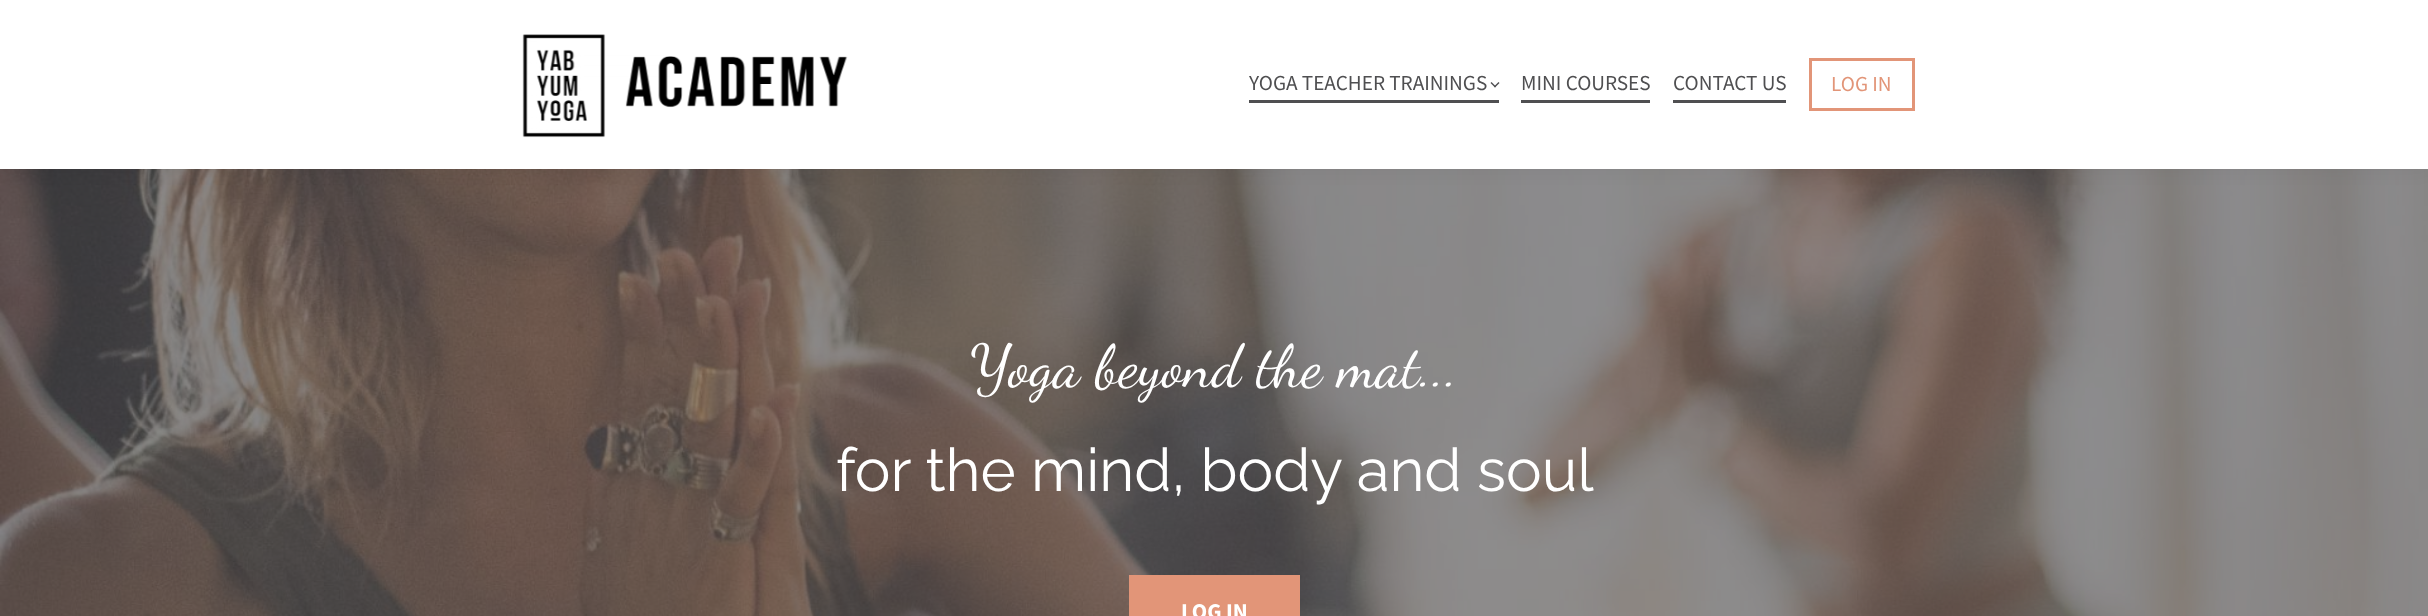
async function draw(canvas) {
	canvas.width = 2428;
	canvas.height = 616;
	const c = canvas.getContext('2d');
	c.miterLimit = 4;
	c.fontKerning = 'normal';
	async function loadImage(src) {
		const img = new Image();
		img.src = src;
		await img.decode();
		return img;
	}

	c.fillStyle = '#fff';
	c.fillRect(0, 0, 2428, 616);
	c.drawImage(await loadImage('img2.png'), 0, 169, 2428, 447);
	c.fillStyle = '#0000000d';
	c.filter = 'blur(9.5px)';
	c.beginPath();
	c.rect(0, 0, 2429, 169);
	c.fill();
	c.filter = 'none';
	c.fillStyle = '#fff';
	c.fillRect(0, 0, 2428, 169);
	c.drawImage(await loadImage('img1.png'), 522, 34, 326, 104);
	c.fillStyle = '#4f4f51';
	c.fillRect(1249, 100, 250, 3);
	c.font = '21.25px Source Sans Pro';
	c.fillText('YOGA TEACHER TRAININGS', 1249, 90);
	c.beginPath();
	c.moveTo(1499.5, 83);
	c.lineTo(1495, 87.5);
	c.lineTo(1494, 86.5);
	c.lineTo(1498.5, 82);
	c.closePath();
	c.fill();
	c.beginPath();
	c.moveTo(1496, 86.5);
	c.lineTo(1495, 87.5);
	c.lineTo(1490.5, 83);
	c.lineTo(1491.5, 82);
	c.closePath();
	c.fill();
	c.fillRect(1521, 100, 129, 3);
	c.fillText('MINI COURSES', 1521, 90);
	c.fillRect(1673, 100, 113, 3);
	c.fillText('CONTACT US', 1673, 90);
	c.strokeStyle = '#e29578';
	c.lineWidth = 3;
	c.strokeRect(1810.5, 59.5, 103, 50);
	c.fillStyle = '#e29578';
	c.fillText('LOG IN', 1831, 91);
	c.font = '60px Dancing Script';
	c.fillStyle = '#fff';
	c.fillText('Yoga beyond the mat...', 970, 386);
	c.font = '60px Raleway';
	c.fillText('for the mind, body and soul', 836, 491);
	c.fillStyle = '#e29578';
	c.fillRect(1129, 575, 171, 41);
	c.font = 'bold 22.5px Source Sans Pro';
	c.fillStyle = '#fff';
	c.fillText('LOG IN', 1181, 619);
}

draw(document.querySelector('canvas'));
